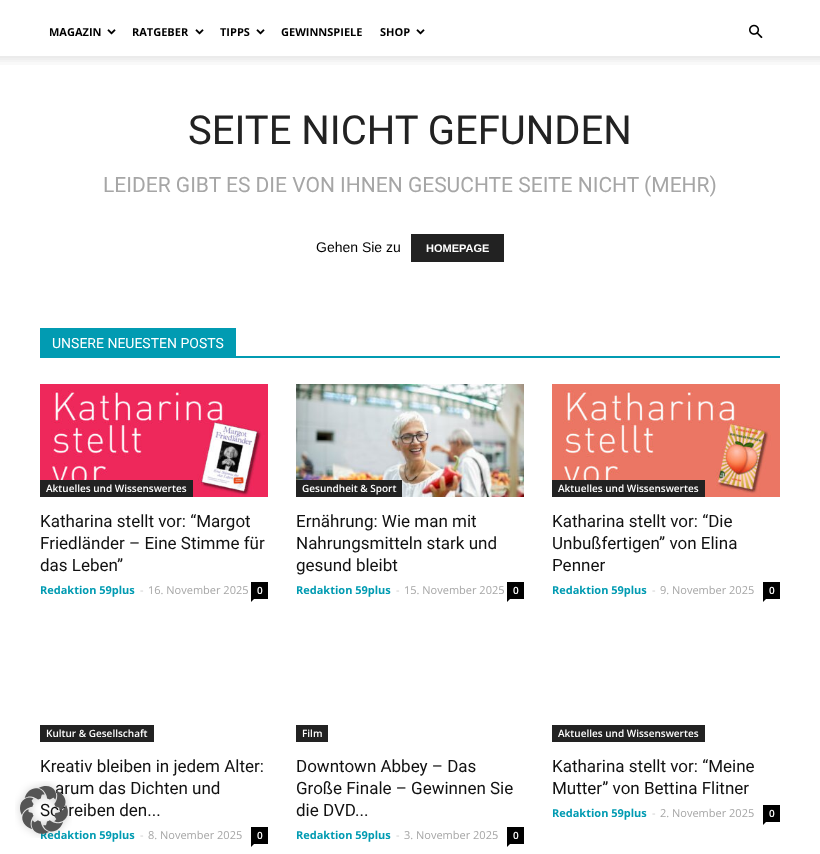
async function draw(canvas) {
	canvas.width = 820;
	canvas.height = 854;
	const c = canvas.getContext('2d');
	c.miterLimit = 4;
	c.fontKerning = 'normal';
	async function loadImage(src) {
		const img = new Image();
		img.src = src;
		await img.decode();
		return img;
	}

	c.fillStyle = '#fff';
	c.fillRect(0, 0, 820, 854);
	c.font = 'bold 11px Open Sans';
	c.fillStyle = '#000';
	c.fillText('MAGAZIN', 49, 36);
	c.drawImage(await loadImage('img1.png'), 107, 29, 9, 6);
	c.fillText('RATGEBER', 132, 36);
	c.drawImage(await loadImage('img1.png'), 195, 29, 9, 6);
	c.fillText('TIPPS', 220, 36);
	c.drawImage(await loadImage('img1.png'), 256, 29, 9, 6);
	c.fillText('GEWINNSPIELE', 281, 36);
	c.fillText('SHOP', 380, 36);
	c.drawImage(await loadImage('img1.png'), 416, 29, 9, 6);
	c.drawImage(await loadImage('img2.png'), 749, 24, 14, 15);
	c.drawImage(await loadImage('img3.png'), 0, 56, 820, 9);
	c.font = '40px Roboto';
	c.fillStyle = '#222';
	c.fillText('SEITE NICHT GEFUNDEN', 188, 144);
	c.font = '21px Roboto';
	c.fillStyle = '#a6a6a6';
	c.fillText('LEIDER GIBT ES DIE VON IHNEN GESUCHTE SEITE NICHT (MEHR)', 103, 192);
	c.font = '14px Liberation Sans';
	c.fillStyle = '#000';
	c.fillText('Gehen Sie zu', 316, 252);
	c.fillStyle = '#222';
	c.fillRect(411, 234, 93, 28);
	c.font = 'bold 11px Liberation Sans';
	c.fillStyle = '#fff';
	c.fillText('HOMEPAGE', 426, 252);
	c.fillStyle = '#019bb2';
	c.fillRect(40, 356, 740, 2);
	c.fillRect(40, 328, 196, 28);
	c.font = '14px Roboto';
	c.fillStyle = '#fff';
	c.fillText('UNSERE NEUESTEN POSTS', 52, 348);
	c.drawImage(await loadImage('img4.png'), 40, 384, 228, 113);
	c.fillStyle = '#222';
	c.fillRect(40, 480, 153, 17);
	c.font = '600 10px Open Sans';
	c.fillStyle = '#fff';
	c.fillText('Aktuelles und Wissenswertes', 46, 492);
	c.font = '17px Roboto';
	c.fillStyle = '#111';
	for (const [text, x, y] of [
		['Katharina stellt vor: “Margot', 40, 527],
		['Friedländer – Eine Stimme für', 40, 549],
		['das Leben”', 40, 571],
	]) {
		c.fillText(text, x, y);
	}
	c.font = 'bold 11px Open Sans';
	c.fillStyle = '#019bb2';
	c.fillText('Redaktion 59plus', 40, 594);
	c.font = '11px Open Sans';
	c.fillStyle = '#ccc';
	c.fillText('-', 140, 594);
	c.fillStyle = '#a6a6a6';
	c.fillText('16. November 2025', 148, 594);
	c.fillStyle = '#000';
	c.fillRect(251, 582, 17, 17);
	c.font = '600 10px Open Sans';
	c.fillStyle = '#fff';
	c.fillText('0', 257, 594);
	c.fillStyle = '#000';
	c.beginPath();
	c.moveTo(251, 599);
	c.lineTo(254, 599);
	c.lineTo(251, 602);
	c.closePath();
	c.fill();
	c.drawImage(await loadImage('img5.png'), 296, 384, 228, 113);
	c.fillStyle = '#222';
	c.fillRect(296, 480, 106, 17);
	c.fillStyle = '#fff';
	c.fillText('Gesundheit & Sport', 302, 492);
	c.font = '17px Roboto';
	c.fillStyle = '#111';
	for (const [text, x, y] of [
		['Ernährung: Wie man mit', 296, 527],
		['Nahrungsmitteln stark und', 296, 549],
		['gesund bleibt', 296, 571],
	]) {
		c.fillText(text, x, y);
	}
	c.font = 'bold 11px Open Sans';
	c.fillStyle = '#019bb2';
	c.fillText('Redaktion 59plus', 296, 594);
	c.font = '11px Open Sans';
	c.fillStyle = '#ccc';
	c.fillText('-', 396, 594);
	c.fillStyle = '#a6a6a6';
	c.fillText('15. November 2025', 404, 594);
	c.fillStyle = '#000';
	c.fillRect(507, 582, 17, 17);
	c.font = '600 10px Open Sans';
	c.fillStyle = '#fff';
	c.fillText('0', 513, 594);
	c.fillStyle = '#000';
	c.beginPath();
	c.moveTo(507, 599);
	c.lineTo(510, 599);
	c.lineTo(507, 602);
	c.closePath();
	c.fill();
	c.drawImage(await loadImage('img6.png'), 552, 384, 228, 113);
	c.fillStyle = '#222';
	c.fillRect(552, 480, 153, 17);
	c.fillStyle = '#fff';
	c.fillText('Aktuelles und Wissenswertes', 558, 492);
	c.font = '17px Roboto';
	c.fillStyle = '#111';
	for (const [text, x, y] of [
		['Katharina stellt vor: “Die', 552, 527],
		['Unbußfertigen” von Elina', 552, 549],
		['Penner', 552, 571],
	]) {
		c.fillText(text, x, y);
	}
	c.font = 'bold 11px Open Sans';
	c.fillStyle = '#019bb2';
	c.fillText('Redaktion 59plus', 552, 594);
	c.font = '11px Open Sans';
	c.fillStyle = '#ccc';
	c.fillText('-', 652, 594);
	c.fillStyle = '#a6a6a6';
	c.fillText('9. November 2025', 660, 594);
	c.fillStyle = '#000';
	c.fillRect(763, 582, 17, 17);
	c.font = '600 10px Open Sans';
	c.fillStyle = '#fff';
	c.fillText('0', 769, 594);
	c.fillStyle = '#000';
	c.beginPath();
	c.moveTo(763, 599);
	c.lineTo(766, 599);
	c.lineTo(763, 602);
	c.closePath();
	c.fill();
	c.fillStyle = '#222';
	c.fillRect(40, 725, 114, 17);
	c.fillStyle = '#fff';
	c.fillText('Kultur & Gesellschaft', 46, 737);
	c.font = '17px Roboto';
	c.fillStyle = '#111';
	for (const [text, x, y] of [
		['Kreativ bleiben in jedem Alter:', 40, 772],
		['arum das Dichten und', 55, 794],
		['Schreiben den...', 40, 816],
	]) {
		c.fillText(text, x, y);
	}
	c.font = 'bold 11px Open Sans';
	c.fillStyle = '#019bb2';
	c.fillText('Redaktion 59plus', 40, 839);
	c.font = '11px Open Sans';
	c.fillStyle = '#ccc';
	c.fillText('-', 140, 839);
	c.fillStyle = '#a6a6a6';
	c.fillText('8. November 2025', 148, 839);
	c.fillStyle = '#000';
	c.fillRect(251, 827, 17, 17);
	c.font = '600 10px Open Sans';
	c.fillStyle = '#fff';
	c.fillText('0', 257, 839);
	c.fillStyle = '#000';
	c.beginPath();
	c.moveTo(251, 844);
	c.lineTo(254, 844);
	c.lineTo(251, 847);
	c.closePath();
	c.fill();
	c.fillStyle = '#222';
	c.fillRect(296, 725, 32, 17);
	c.fillStyle = '#fff';
	c.fillText('Film', 302, 737);
	c.font = '17px Roboto';
	c.fillStyle = '#111';
	for (const [text, x, y] of [
		['Downtown Abbey – Das', 296, 772],
		['Große Finale – Gewinnen Sie', 296, 794],
		['die DVD...', 296, 816],
	]) {
		c.fillText(text, x, y);
	}
	c.font = 'bold 11px Open Sans';
	c.fillStyle = '#019bb2';
	c.fillText('Redaktion 59plus', 296, 839);
	c.font = '11px Open Sans';
	c.fillStyle = '#ccc';
	c.fillText('-', 396, 839);
	c.fillStyle = '#a6a6a6';
	c.fillText('3. November 2025', 404, 839);
	c.fillStyle = '#000';
	c.fillRect(507, 827, 17, 17);
	c.font = '600 10px Open Sans';
	c.fillStyle = '#fff';
	c.fillText('0', 513, 839);
	c.fillStyle = '#000';
	c.beginPath();
	c.moveTo(507, 844);
	c.lineTo(510, 844);
	c.lineTo(507, 847);
	c.closePath();
	c.fill();
	c.fillStyle = '#222';
	c.fillRect(552, 725, 153, 17);
	c.fillStyle = '#fff';
	c.fillText('Aktuelles und Wissenswertes', 558, 737);
	c.font = '17px Roboto';
	c.fillStyle = '#111';
	c.fillText('Katharina stellt vor: “Meine', 552, 772);
	c.fillText('Mutter” von Bettina Flitner', 552, 794);
	c.font = 'bold 11px Open Sans';
	c.fillStyle = '#019bb2';
	c.fillText('Redaktion 59plus', 552, 817);
	c.font = '11px Open Sans';
	c.fillStyle = '#ccc';
	c.fillText('-', 652, 817);
	c.fillStyle = '#a6a6a6';
	c.fillText('2. November 2025', 660, 817);
	c.fillStyle = '#000';
	c.fillRect(763, 805, 17, 17);
	c.font = '600 10px Open Sans';
	c.fillStyle = '#fff';
	c.fillText('0', 769, 817);
	c.fillStyle = '#000';
	c.beginPath();
	c.moveTo(763, 822);
	c.lineTo(766, 822);
	c.lineTo(763, 825);
	c.closePath();
	c.fill();
	c.drawImage(await loadImage('img7.png'), 15, 781, 57, 57);
}

draw(document.querySelector('canvas'));
